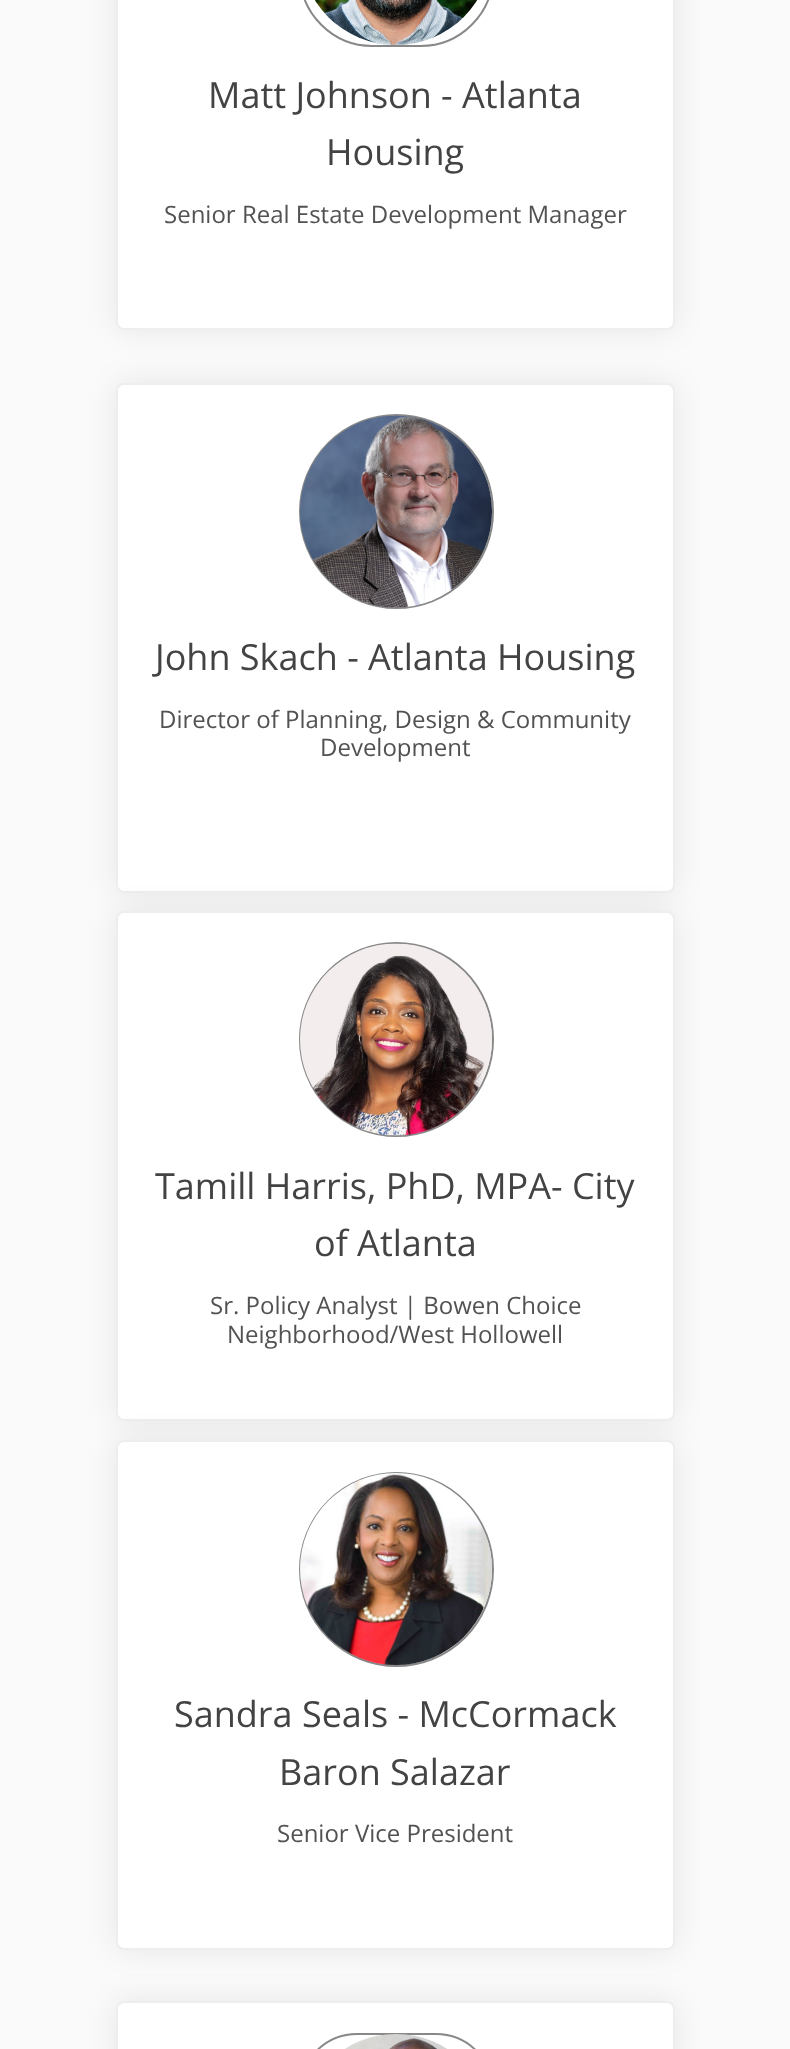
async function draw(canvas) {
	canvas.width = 790;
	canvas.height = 2049;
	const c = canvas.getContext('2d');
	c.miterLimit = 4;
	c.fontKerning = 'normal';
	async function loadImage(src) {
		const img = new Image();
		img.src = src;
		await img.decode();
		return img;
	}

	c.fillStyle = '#fafafa';
	c.fillRect(0, 0, 790, 2049);
	c.fillStyle = '#00000014';
	c.filter = 'blur(15px)';
	c.beginPath();
	c.roundRect(116, -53, 559, 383, 8);
	c.fill();
	c.filter = 'none';
	c.fillStyle = '#fff';
	c.beginPath();
	c.roundRect(117, -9, 557, 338, 7);
	c.fill();
	c.strokeStyle = '#eee';
	c.lineWidth = 2;
	c.stroke();
	c.beginPath();
	c.roundRect(300, -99, 193, 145, 96.5);
	c.strokeStyle = '#888';
	c.stroke();
	c.drawImage(await loadImage('img1.png'), 315, 0, 163, 45);
	c.font = '36px Open Sans';
	c.fillStyle = '#434343';
	c.fillText('Matt Johnson - Atlanta', 208, 108);
	c.fillText('Housing', 326, 165);
	c.font = '24px Open Sans';
	c.fillStyle = '#525252';
	c.fillText('Senior Real Estate Development Manager', 164, 223);
	c.fillStyle = '#00000014';
	c.filter = 'blur(15px)';
	c.beginPath();
	c.roundRect(116, 383, 559, 510, 8);
	c.fill();
	c.filter = 'none';
	c.fillStyle = '#fff';
	c.beginPath();
	c.roundRect(117, 384, 557, 508, 7);
	c.fill();
	c.strokeStyle = '#eee';
	c.stroke();
	c.beginPath();
	c.arc(396.5, 511.5, 96.5, 0, 2 * Math.PI);
	c.strokeStyle = '#888';
	c.stroke();
	c.drawImage(await loadImage('img2.png'), 300, 415, 192, 193);
	c.font = '36px Open Sans';
	c.fillStyle = '#434343';
	c.fillText('John Skach - Atlanta Housing', 155, 670);
	c.font = '24px Open Sans';
	c.fillStyle = '#525252';
	c.fillText('Director of Planning, Design & Community', 159, 728);
	c.fillText('Development', 320, 756);
	c.fillStyle = '#00000014';
	c.filter = 'blur(15px)';
	c.beginPath();
	c.roundRect(116, 911, 559, 510, 8);
	c.fill();
	c.filter = 'none';
	c.fillStyle = '#fff';
	c.beginPath();
	c.roundRect(117, 912, 557, 508, 7);
	c.fill();
	c.strokeStyle = '#eee';
	c.stroke();
	c.beginPath();
	c.arc(396.5, 1039.5, 96.5, 0, 2 * Math.PI);
	c.strokeStyle = '#888';
	c.stroke();
	c.drawImage(await loadImage('img3.png'), 300, 943, 192, 193);
	c.font = '36px Open Sans';
	c.fillStyle = '#434343';
	c.fillText('Tamill Harris, PhD, MPA- City', 155, 1199);
	c.fillText('of Atlanta', 314, 1256);
	c.font = '24px Open Sans';
	c.fillStyle = '#525252';
	c.fillText('Sr. Policy Analyst | Bowen Choice', 210, 1314);
	c.fillText('Neighborhood/West Hollowell', 227, 1343);
	c.fillStyle = '#00000014';
	c.filter = 'blur(15px)';
	c.beginPath();
	c.roundRect(116, 1440, 559, 510, 8);
	c.fill();
	c.filter = 'none';
	c.fillStyle = '#fff';
	c.beginPath();
	c.roundRect(117, 1441, 557, 508, 7);
	c.fill();
	c.strokeStyle = '#eee';
	c.stroke();
	c.beginPath();
	c.arc(396.5, 1569.5, 96.5, 0, 2 * Math.PI);
	c.strokeStyle = '#888';
	c.stroke();
	c.drawImage(await loadImage('img4.png'), 300, 1473, 192, 192);
	c.font = '36px Open Sans';
	c.fillStyle = '#434343';
	c.fillText('Sandra Seals - McCormack', 174, 1727);
	c.fillText('Baron Salazar', 279, 1785);
	c.font = '24px Open Sans';
	c.fillStyle = '#525252';
	c.fillText('Senior Vice President', 277, 1842);
	c.fillStyle = '#00000014';
	c.filter = 'blur(15px)';
	c.beginPath();
	c.roundRect(116, 2001, 559, 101, 8);
	c.fill();
	c.filter = 'none';
	c.fillStyle = '#fff';
	c.beginPath();
	c.roundRect(117, 2002, 557, 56, 7);
	c.fill();
	c.strokeStyle = '#eee';
	c.stroke();
	c.beginPath();
	c.roundRect(300, 2034, 193, 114, 96.5);
	c.strokeStyle = '#888';
	c.stroke();
	c.drawImage(await loadImage('img5.png'), 345, 2034, 102, 15);
}

draw(document.querySelector('canvas'));
